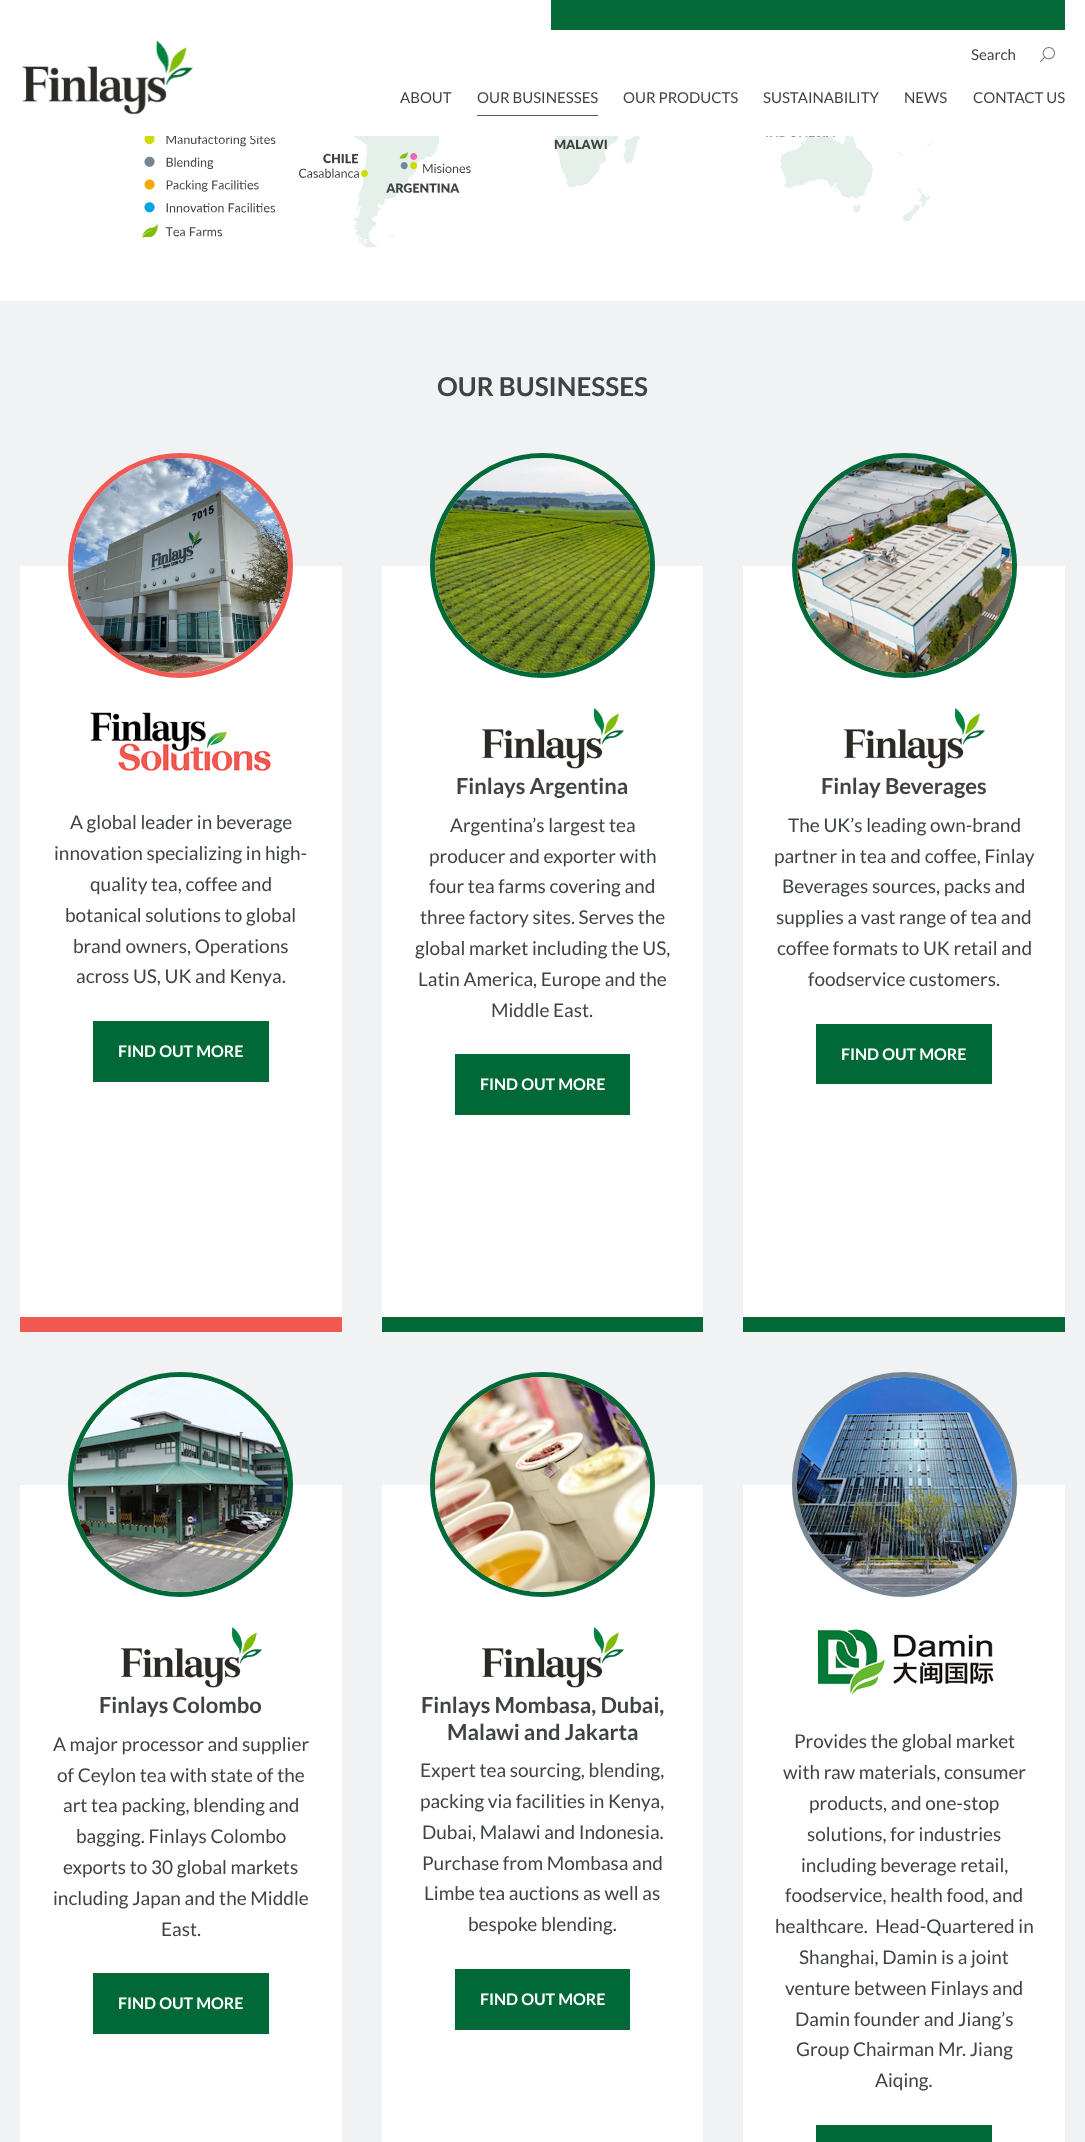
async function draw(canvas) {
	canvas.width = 1085;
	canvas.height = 2142;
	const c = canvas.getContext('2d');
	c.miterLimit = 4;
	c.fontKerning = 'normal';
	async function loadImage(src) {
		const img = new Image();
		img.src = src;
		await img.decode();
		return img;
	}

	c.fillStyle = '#fff';
	c.fillRect(0, 0, 1085, 2142);
	c.drawImage(await loadImage('img1.png'), 22, 40, 171, 75);
	c.fillStyle = '#046a38';
	c.fillRect(551, 0, 514, 30);
	c.font = '15px Lato';
	c.fillStyle = '#3f4443';
	c.fillText('Search', 971, 60);
	c.drawImage(await loadImage('img2.png'), 1040, 47, 15, 15);
	c.fillText('ABOUT', 400, 103);
	c.fillText('OUR BUSINESSES', 477, 103);
	c.fillStyle = '#55595c';
	c.fillRect(477, 115, 121, 1);
	c.fillStyle = '#3f4443';
	for (const [text, x, y] of [
		['OUR PRODUCTS', 623, 103],
		['SUSTAINABILITY', 763, 103],
		['NEWS', 904, 103],
		['CONTACT US', 973, 103],
	]) {
		c.fillText(text, x, y);
	}
	c.drawImage(await loadImage('img3.png'), 142, 136, 791, 113);
	c.fillStyle = '#f1f2f4';
	c.fillRect(0, 301, 1085, 1841);
	c.font = 'bold 26px Lato';
	c.fillStyle = '#3f4443';
	c.fillText('OUR BUSINESSES', 437, 396);
	c.fillStyle = '#fff';
	c.fillRect(20, 566, 322, 751);
	c.fillStyle = '#f15a53';
	c.fillRect(20, 1317, 322, 15);
	c.beginPath();
	c.arc(180.5, 565.5, 110, 0, 2 * Math.PI);
	c.strokeStyle = '#f15a53';
	c.lineWidth = 5;
	c.stroke();
	c.drawImage(await loadImage('img4.png'), 73, 458, 215, 215);
	c.drawImage(await loadImage('img5.png'), 90, 712, 181, 60);
	c.font = '19px Lato';
	c.fillStyle = '#3f4443';
	for (const [text, x, y] of [
		['A global leader in beverage', 70, 829],
		['innovation specializing in high-', 54, 860],
		['quality tea, coffee and', 90, 891],
		['botanical solutions to global', 65, 922],
		['brand owners, Operations', 73, 953],
		['across US, UK and Kenya.', 76, 983],
	]) {
		c.fillText(text, x, y);
	}
	c.fillStyle = '#006937';
	c.fillRect(93, 1021, 176, 61);
	c.font = 'bold 16px Lato';
	c.fillStyle = '#fff';
	c.fillText('FIND OUT MORE', 118, 1057);
	c.fillRect(382, 566, 321, 751);
	c.fillStyle = '#006937';
	c.fillRect(382, 1317, 321, 15);
	c.beginPath();
	c.arc(542.5, 565.5, 110, 0, 2 * Math.PI);
	c.strokeStyle = '#006937';
	c.stroke();
	c.drawImage(await loadImage('img6.png'), 435, 458, 215, 215);
	c.drawImage(await loadImage('img7.png'), 482, 708, 142, 61);
	c.font = 'bold 22px Lato';
	c.fillStyle = '#3f4443';
	c.fillText('Finlays Argentina', 456, 794);
	c.font = '19px Lato';
	for (const [text, x, y] of [
		['Argentina’s largest tea', 450, 832],
		['producer and exporter with', 429, 863],
		['four tea farms covering and', 429, 893],
		['three factory sites. Serves the', 420, 924],
		['global market including the US,', 415, 955],
		['Latin America, Europe and the', 418, 986],
		['Middle East.', 491, 1017],
	]) {
		c.fillText(text, x, y);
	}
	c.fillStyle = '#006937';
	c.fillRect(455, 1054, 175, 61);
	c.font = 'bold 16px Lato';
	c.fillStyle = '#fff';
	c.fillText('FIND OUT MORE', 480, 1090);
	c.fillRect(743, 566, 322, 751);
	c.fillStyle = '#006937';
	c.fillRect(743, 1317, 322, 15);
	c.beginPath();
	c.arc(904.5, 565.5, 110, 0, 2 * Math.PI);
	c.stroke();
	c.drawImage(await loadImage('img8.png'), 797, 458, 215, 215);
	c.drawImage(await loadImage('img9.png'), 843, 708, 142, 61);
	c.font = 'bold 22px Lato';
	c.fillStyle = '#3f4443';
	c.fillText('Finlay Beverages', 821, 794);
	c.font = '19px Lato';
	for (const [text, x, y] of [
		['The UK’s leading own-brand', 788, 832],
		['partner in tea and coffee, Finlay', 774, 863],
		['Beverages sources, packs and', 782, 893],
		['supplies a vast range of tea and', 776, 924],
		['coffee formats to UK retail and', 777, 955],
		['foodservice customers.', 808, 986],
	]) {
		c.fillText(text, x, y);
	}
	c.fillStyle = '#006937';
	c.fillRect(816, 1024, 176, 60);
	c.font = 'bold 16px Lato';
	c.fillStyle = '#fff';
	c.fillText('FIND OUT MORE', 841, 1060);
	c.fillRect(20, 1485, 322, 657);
	c.beginPath();
	c.arc(180.5, 1484.5, 110, 0, 2 * Math.PI);
	c.stroke();
	c.drawImage(await loadImage('img10.png'), 73, 1377, 215, 215);
	c.drawImage(await loadImage('img9.png'), 120, 1627, 142, 61);
	c.font = 'bold 22px Lato';
	c.fillStyle = '#3f4443';
	c.fillText('Finlays Colombo', 99, 1713);
	c.font = '19px Lato';
	for (const [text, x, y] of [
		['A major processor and supplier', 53, 1751],
		['of Ceylon tea with state of the', 57, 1782],
		['art tea packing, blending and', 63, 1812],
		['bagging. Finlays Colombo', 76, 1843],
		['exports to 30 global markets', 63, 1874],
		['including Japan and the Middle', 53, 1905],
		['East.', 161, 1936],
	]) {
		c.fillText(text, x, y);
	}
	c.fillStyle = '#006937';
	c.fillRect(93, 1973, 176, 61);
	c.font = 'bold 16px Lato';
	c.fillStyle = '#fff';
	c.fillText('FIND OUT MORE', 118, 2009);
	c.fillRect(382, 1485, 321, 657);
	c.beginPath();
	c.arc(542.5, 1484.5, 110, 0, 2 * Math.PI);
	c.stroke();
	c.drawImage(await loadImage('img11.png'), 435, 1377, 215, 215);
	c.drawImage(await loadImage('img7.png'), 482, 1627, 142, 61);
	c.font = 'bold 22px Lato';
	c.fillStyle = '#3f4443';
	c.fillText('Finlays Mombasa, Dubai,', 421, 1713);
	c.fillText('Malawi and Jakarta', 447, 1740);
	c.font = '19px Lato';
	for (const [text, x, y] of [
		['Expert tea sourcing, blending,', 420, 1777],
		['packing via facilities in Kenya,', 420, 1808],
		['Dubai, Malawi and Indonesia.', 422, 1839],
		['Purchase from Mombasa and', 422, 1870],
		['Limbe tea auctions as well as', 424, 1900],
		['bespoke blending.', 468, 1931],
	]) {
		c.fillText(text, x, y);
	}
	c.fillStyle = '#006937';
	c.fillRect(455, 1969, 175, 61);
	c.font = 'bold 16px Lato';
	c.fillStyle = '#fff';
	c.fillText('FIND OUT MORE', 480, 2005);
	c.fillRect(743, 1485, 322, 657);
	c.beginPath();
	c.arc(904.5, 1484.5, 110, 0, 2 * Math.PI);
	c.strokeStyle = '#758592';
	c.stroke();
	c.drawImage(await loadImage('img12.png'), 797, 1377, 215, 215);
	c.drawImage(await loadImage('img13.png'), 817, 1629, 177, 66);
	c.font = '19px Lato';
	c.fillStyle = '#3f4443';
	for (const [text, x, y] of [
		['Provides the global market', 794, 1748],
		['with raw materials, consumer', 783, 1779],
		['products, and one-stop', 809, 1810],
		['solutions, for industries', 807, 1841],
		['including beverage retail,', 801, 1872],
		['foodservice, health food, and', 785, 1902],
		['healthcare.  Head-Quartered in', 775, 1933],
		['Shanghai, Damin is a joint', 799, 1964],
		['venture between Finlays and', 785, 1995],
		['Damin founder and Jiang’s', 795, 2026],
		['Group Chairman Mr. Jiang', 796, 2056],
		['Aiqing.', 875, 2087],
	]) {
		c.fillText(text, x, y);
	}
	c.fillStyle = '#006937';
	c.fillRect(816, 2125, 176, 17);
}

draw(document.querySelector('canvas'));
